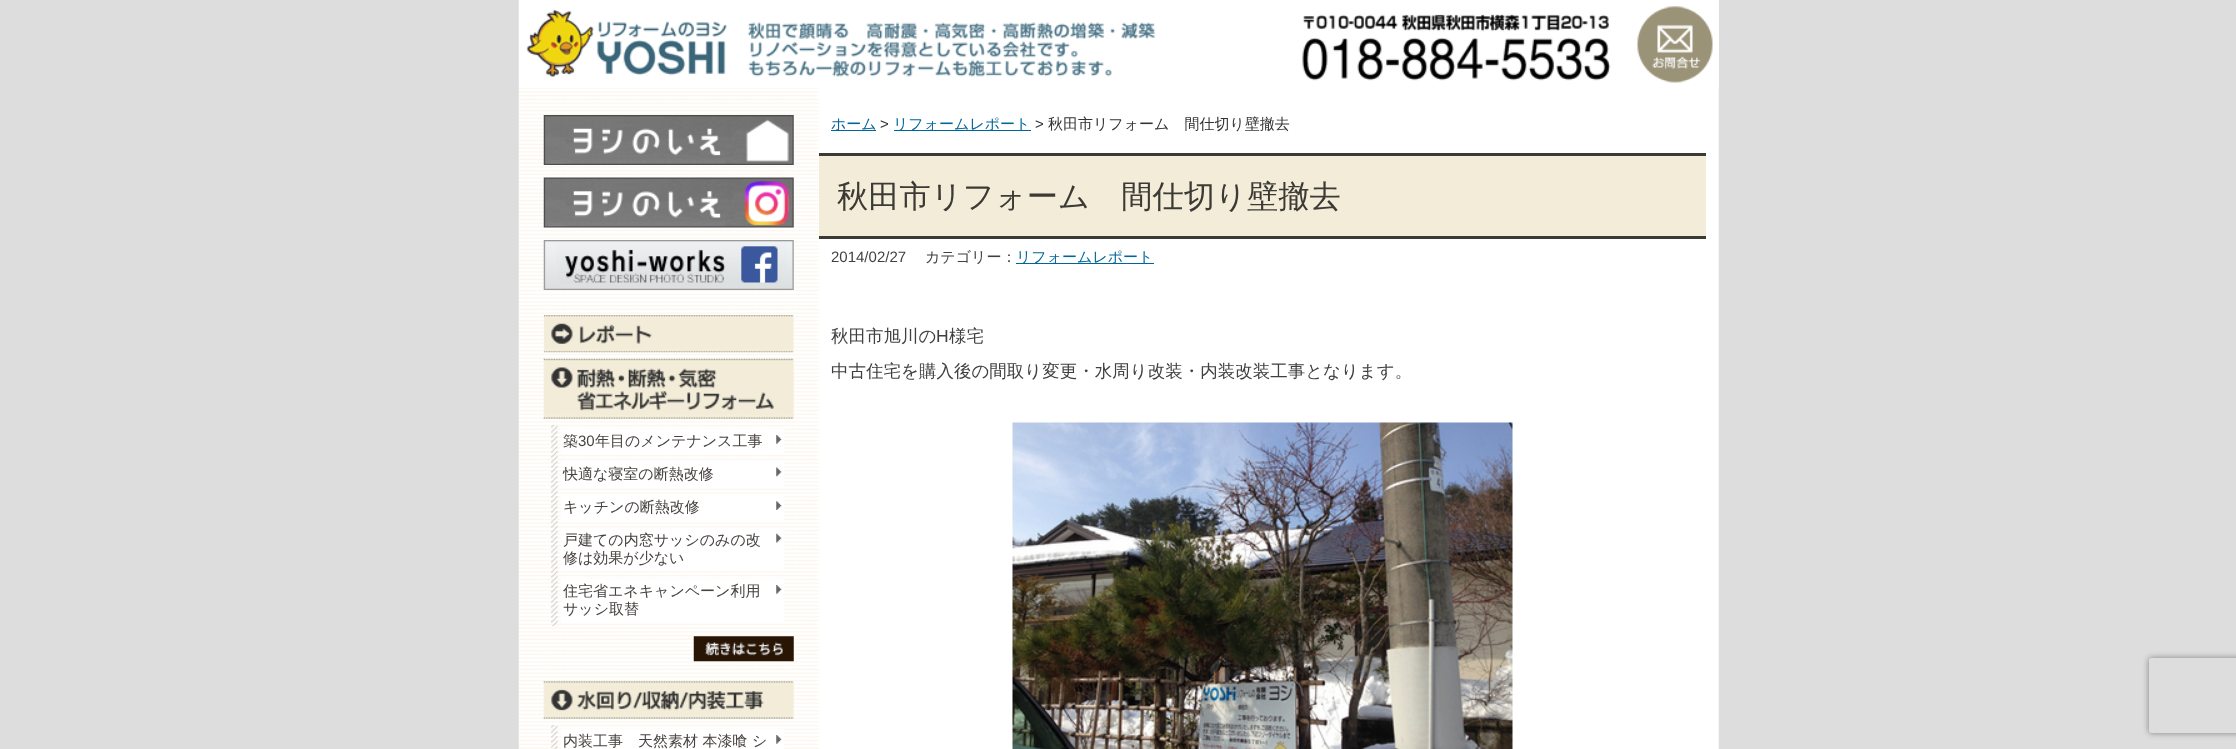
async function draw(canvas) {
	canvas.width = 2236;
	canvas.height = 749;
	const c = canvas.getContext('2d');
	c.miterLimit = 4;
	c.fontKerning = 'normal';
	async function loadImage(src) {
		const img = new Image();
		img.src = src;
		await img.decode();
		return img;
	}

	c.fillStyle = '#dedddd';
	c.fillRect(0, 0, 2236, 749);
	c.drawImage(await loadImage('img3.png'), 518, 87, 1201, 662);
	c.fillStyle = '#fff';
	c.fillRect(519, 0, 1200, 88);
	c.drawImage(await loadImage('img1.png'), 518, 0, 1093, 87);
	c.drawImage(await loadImage('img2.png'), 1637, 6, 76, 77);
	c.fillStyle = '#069';
	c.fillRect(831, 130, 45, 1);
	c.font = '500 15px WenQuanYi Zen Hei';
	c.fillText('ホーム', 831, 129);
	c.font = '15px Liberation Sans';
	c.fillStyle = '#333';
	c.fillText('>', 880, 129);
	c.fillStyle = '#069';
	c.fillRect(894, 130, 137, 1);
	c.font = '500 15px WenQuanYi Zen Hei';
	c.fillText('リフォームレポート', 893, 129);
	c.font = '15px Liberation Sans';
	c.fillStyle = '#333';
	c.fillText('>', 1035, 129);
	c.font = '500 15px WenQuanYi Zen Hei';
	c.fillText('秋田市リフォーム　間仕切り壁撤去', 1048, 129);
	for (const [x, y, w, h, color] of [
		[819, 156, 887, 80, '#f2ecd8'],
		[819, 153, 887, 3, '#3c3a35'],
		[819, 236, 887, 3, '#3c3a35'],
	]) {
		c.fillStyle = color;
		c.fillRect(x, y, w, h);
	}
	c.font = '500 31.25px WenQuanYi Zen Hei';
	c.fillText('秋田市リフォーム　間仕切り壁撤去', 837, 207);
	c.font = '15px Liberation Sans';
	c.fillStyle = '#404040';
	c.fillText('2014/02/27', 831, 262);
	c.font = '500 15px WenQuanYi Zen Hei';
	c.fillText('カテゴリー：', 925, 262);
	c.fillStyle = '#069';
	c.fillRect(1016, 263, 138, 1);
	c.fillText('リフォームレポート', 1016, 262);
	c.font = '500 17.5px WenQuanYi Zen Hei';
	c.fillStyle = '#404040';
	c.fillText('秋田市旭川の', 831, 342);
	c.font = '17.5px Liberation Sans';
	c.fillText('H', 936, 342);
	c.font = '500 17.5px WenQuanYi Zen Hei';
	c.fillText('様宅', 949, 342);
	c.fillText('中古住宅を購入後の間取り変更・水周り改装・内装改装工事となります。', 831, 377);
	c.drawImage(await loadImage('img4.png'), 1012, 422, 501, 327);
	c.drawImage(await loadImage('img5.png'), 543, 115, 251, 50);
	c.drawImage(await loadImage('img6.png'), 543, 177, 251, 51);
	c.drawImage(await loadImage('img7.png'), 543, 240, 251, 50);
	c.drawImage(await loadImage('img8.png'), 543, 315, 251, 38);
	c.drawImage(await loadImage('img9.png'), 543, 358, 251, 61);
	c.drawImage(await loadImage('img10.png'), 551, 425, 7, 202);
	c.fillStyle = '#fff';
	c.fillRect(561, 429, 223, 24);
	c.drawImage(await loadImage('img11.png'), 776, 435, 6, 9);
	c.font = '500 15px WenQuanYi Zen Hei';
	c.fillStyle = '#484341';
	c.fillText('築', 563, 446);
	c.font = '15px Liberation Sans';
	c.fillText('30', 578, 446);
	c.font = '500 15px WenQuanYi Zen Hei';
	c.fillText('年目のメンテナンス工事', 595, 446);
	c.fillStyle = '#fff';
	c.fillRect(561, 462, 223, 25);
	c.drawImage(await loadImage('img12.png'), 776, 467, 6, 10);
	c.fillStyle = '#484341';
	c.fillText('快適な寝室の断熱改修', 563, 479);
	c.fillStyle = '#fff';
	c.fillRect(561, 496, 223, 24);
	c.drawImage(await loadImage('img13.png'), 776, 501, 6, 9);
	c.fillStyle = '#484341';
	c.fillText('キッチンの断熱改修', 563, 512);
	c.fillStyle = '#fff';
	c.fillRect(561, 530, 223, 39);
	c.drawImage(await loadImage('img14.png'), 776, 533, 6, 10);
	c.fillStyle = '#484341';
	c.fillText('戸建ての内窓サッシのみの改', 563, 545);
	c.fillText('修は効果が少ない', 563, 563);
	c.fillStyle = '#fff';
	c.fillRect(561, 579, 223, 43);
	c.drawImage(await loadImage('img15.png'), 776, 585, 6, 9);
	c.fillStyle = '#484341';
	c.fillText('住宅省エネキャンペーン利用', 563, 596);
	c.fillText('サッシ取替', 563, 614);
	c.drawImage(await loadImage('img16.png'), 693, 636, 101, 26);
	c.drawImage(await loadImage('img17.png'), 543, 681, 251, 38);
	c.drawImage(await loadImage('img18.png'), 551, 725, 7, 24);
	c.fillStyle = '#fff';
	c.fillRect(561, 729, 223, 20);
	c.drawImage(await loadImage('img11.png'), 776, 735, 6, 9);
	c.fillStyle = '#484341';
	c.fillText('内装工事　天然素材 本漆喰 シ', 563, 746);
	c.save();
	c.beginPath();
	c.moveTo(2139, 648);
	c.lineTo(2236, 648);
	c.lineTo(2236, 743);
	c.lineTo(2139, 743);
	c.closePath();
	c.moveTo(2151.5, 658);
	c.lineTo(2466.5, 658);
	c.bezierCurveTo(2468, 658, 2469, 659, 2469, 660.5);
	c.lineTo(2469, 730.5);
	c.bezierCurveTo(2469, 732, 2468, 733, 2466.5, 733);
	c.lineTo(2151.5, 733);
	c.bezierCurveTo(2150, 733, 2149, 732, 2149, 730.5);
	c.lineTo(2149, 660.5);
	c.bezierCurveTo(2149, 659, 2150, 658, 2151.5, 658);
	c.closePath();
	c.clip('evenodd');
	c.fillStyle = '#808080';
	c.filter = 'blur(3px)';
	c.beginPath();
	c.roundRect(2149, 658, 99, 75, 2.5);
	c.fill();
	c.filter = 'none';
	c.restore();
}

draw(document.querySelector('canvas'));
